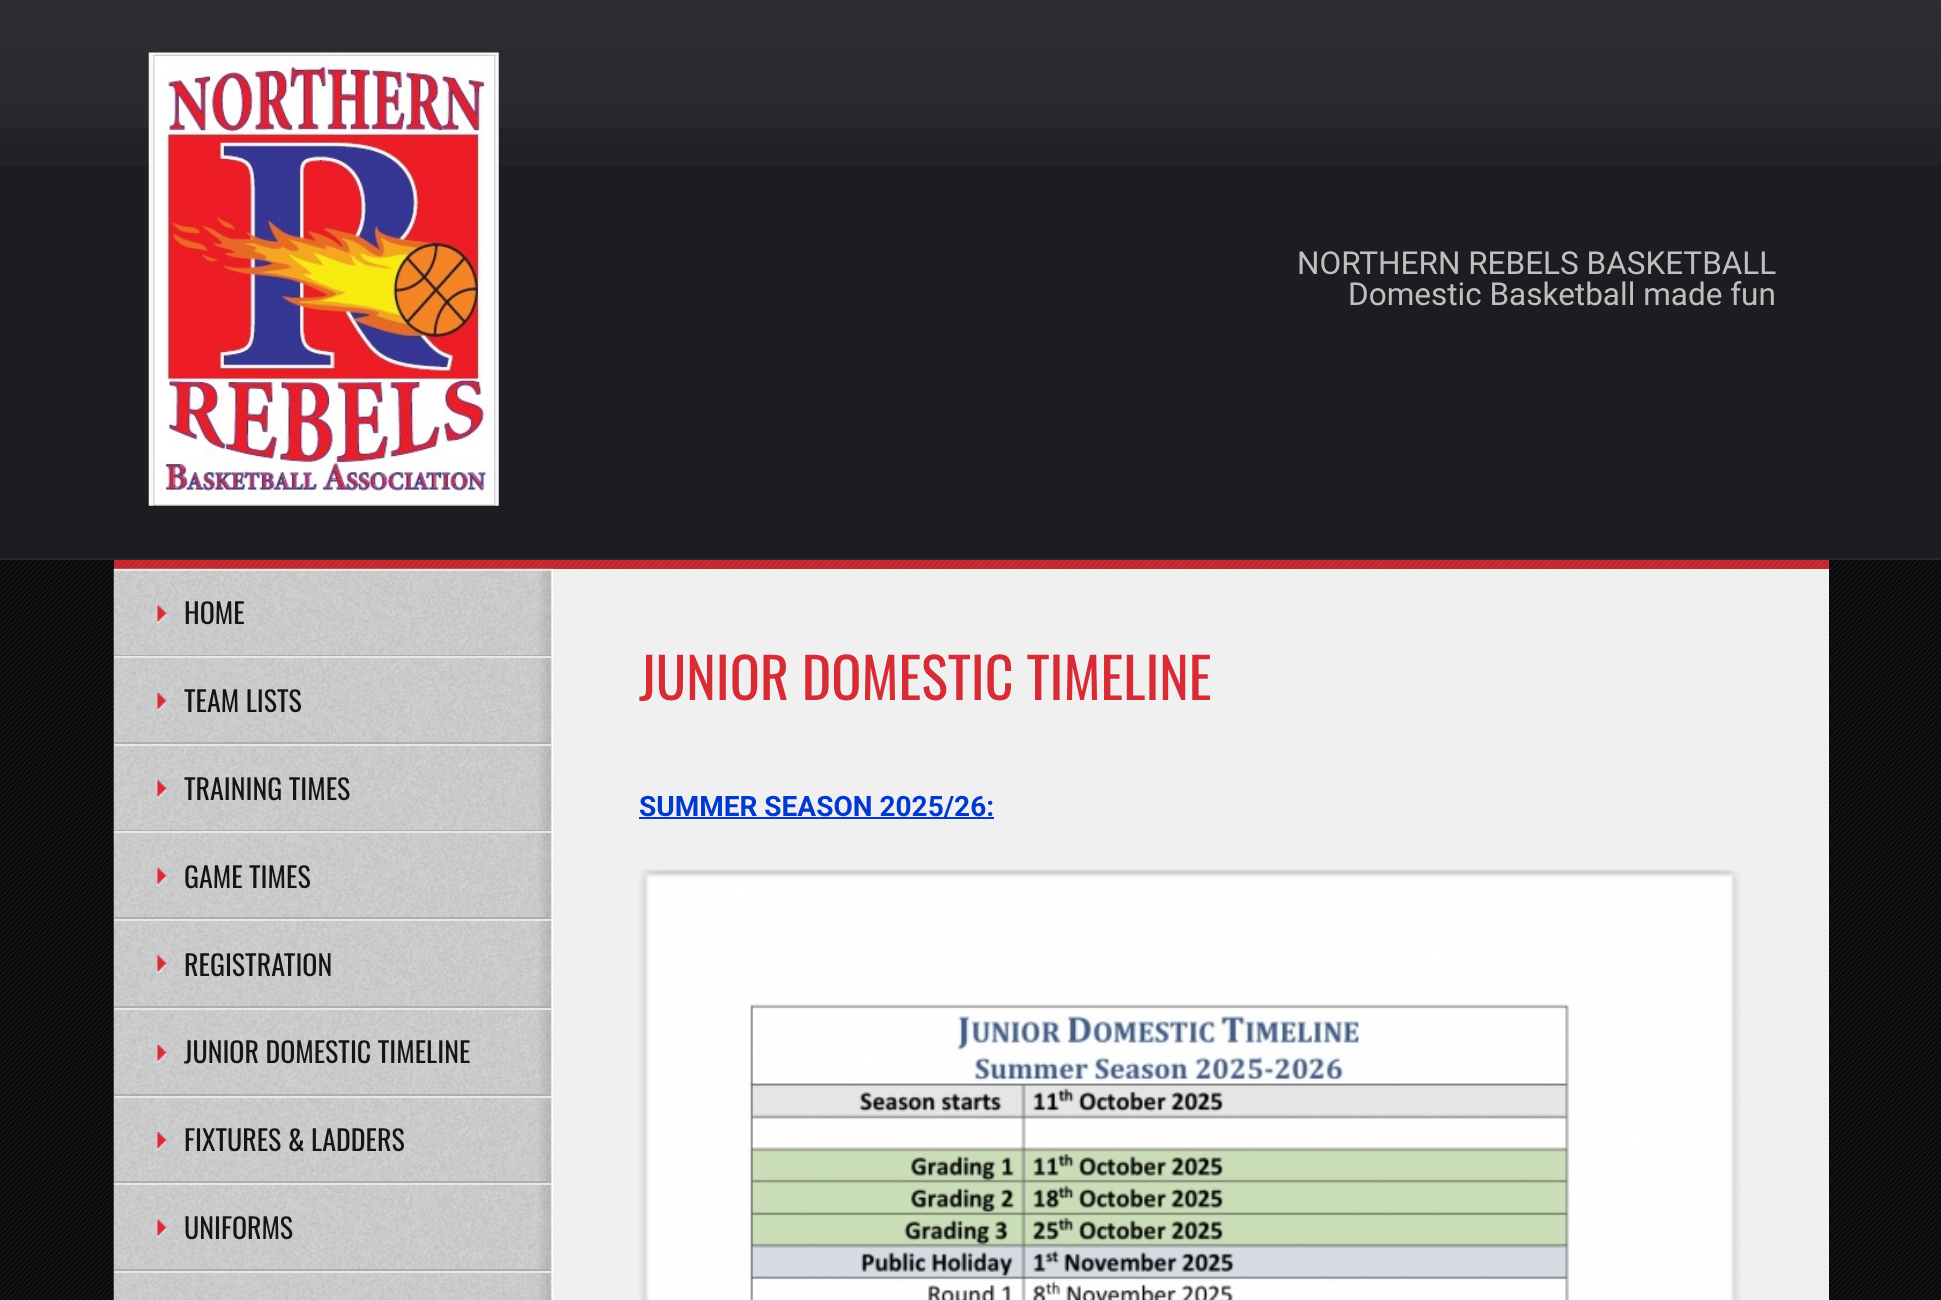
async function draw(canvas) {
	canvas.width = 1941;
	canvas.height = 1300;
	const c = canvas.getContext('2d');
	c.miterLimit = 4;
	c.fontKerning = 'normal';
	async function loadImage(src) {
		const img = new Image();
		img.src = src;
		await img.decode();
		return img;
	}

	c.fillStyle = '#1c1d20';
	c.fillRect(0, 0, 1941, 1300);
	c.drawImage(await loadImage('img1.png'), 0, 0, 1941, 166);
	c.fillStyle = '#28292d';
	c.fillRect(0, 558, 1941, 2);
	c.drawImage(await loadImage('img2.png'), 148, 52, 351, 454);
	c.font = '31.5px Roboto';
	c.fillStyle = '#bfbfc0';
	c.fillText('NORTHERN REBELS BASKETBALL', 1297, 274);
	c.fillText('Domestic Basketball made fun', 1348, 305);
	c.drawImage(await loadImage('img3.png'), 0, 560, 1941, 740);
	c.fillStyle = '#d72c35';
	c.fillRect(114, 560, 1715, 9);
	c.drawImage(await loadImage('img4.png'), 114, 560, 1715, 9);
	c.fillStyle = '#f0f0f0';
	c.fillRect(553, 569, 1276, 731);
	c.drawImage(await loadImage('img5.png'), 113, 568, 440, 732);
	c.fillStyle = '#e8e8e9';
	c.fillRect(114, 569, 437, 2);
	c.fillStyle = '#aeaeaf';
	c.fillRect(114, 655, 437, 1);
	c.drawImage(await loadImage('img6.png'), 157, 605, 10, 18);
	c.font = '28px Oswald';
	c.fillStyle = '#151516';
	c.fillText('HOME', 184, 624);
	c.fillStyle = '#e8e8e9';
	c.fillRect(114, 656, 437, 2);
	c.fillStyle = '#aeaeaf';
	c.fillRect(114, 742, 437, 2);
	c.drawImage(await loadImage('img7.png'), 157, 693, 10, 18);
	c.fillStyle = '#151516';
	c.fillText('TEAM LISTS', 184, 712);
	c.fillStyle = '#e8e8e9';
	c.fillRect(114, 744, 437, 2);
	c.fillStyle = '#aeaeaf';
	c.fillRect(114, 830, 437, 1);
	c.drawImage(await loadImage('img8.png'), 157, 780, 10, 18);
	c.fillStyle = '#151516';
	c.fillText('TRAINING TIMES', 184, 800);
	c.fillStyle = '#e8e8e9';
	c.fillRect(114, 831, 437, 2);
	c.fillStyle = '#aeaeaf';
	c.fillRect(114, 917, 437, 2);
	c.drawImage(await loadImage('img9.png'), 157, 868, 10, 18);
	c.fillStyle = '#151516';
	c.fillText('GAME TIMES', 184, 888);
	c.fillStyle = '#e8e8e9';
	c.fillRect(114, 919, 437, 2);
	c.fillStyle = '#aeaeaf';
	c.fillRect(114, 1006, 437, 2);
	c.drawImage(await loadImage('img10.png'), 157, 955, 10, 18);
	c.fillStyle = '#151516';
	c.fillText('REGISTRATION', 184, 976);
	c.fillStyle = '#e8e8e9';
	c.fillRect(114, 1008, 437, 2);
	c.fillStyle = '#aeaeaf';
	c.fillRect(114, 1094, 437, 2);
	c.drawImage(await loadImage('img11.png'), 157, 1044, 10, 19);
	c.fillStyle = '#151516';
	c.fillText('JUNIOR DOMESTIC TIMELINE', 184, 1063);
	c.fillStyle = '#e8e8e9';
	c.fillRect(114, 1096, 437, 2);
	c.fillStyle = '#aeaeaf';
	c.fillRect(114, 1181, 437, 2);
	c.drawImage(await loadImage('img12.png'), 157, 1132, 10, 18);
	c.fillStyle = '#151516';
	c.fillText('FIXTURES & LADDERS', 184, 1151);
	c.fillStyle = '#e8e8e9';
	c.fillRect(114, 1183, 437, 2);
	c.fillStyle = '#aeaeaf';
	c.fillRect(114, 1269, 437, 2);
	c.drawImage(await loadImage('img13.png'), 157, 1219, 10, 19);
	c.fillStyle = '#151516';
	c.fillText('UNIFORMS', 184, 1239);
	c.fillStyle = '#e8e8e9';
	c.fillRect(114, 1271, 437, 2);
	c.font = '56px Oswald';
	c.fillStyle = '#d72c35';
	c.fillText('JUNIOR DOMESTIC TIMELINE', 639, 700);
	c.fillStyle = '#0039d0';
	c.fillRect(639, 817, 355, 2);
	c.font = 'bold 28px Roboto';
	c.fillText('SUMMER SEASON 2025/26:', 639, 816);
	c.drawImage(await loadImage('img14.png'), 639, 869, 1102, 431);
}

draw(document.querySelector('canvas'));
